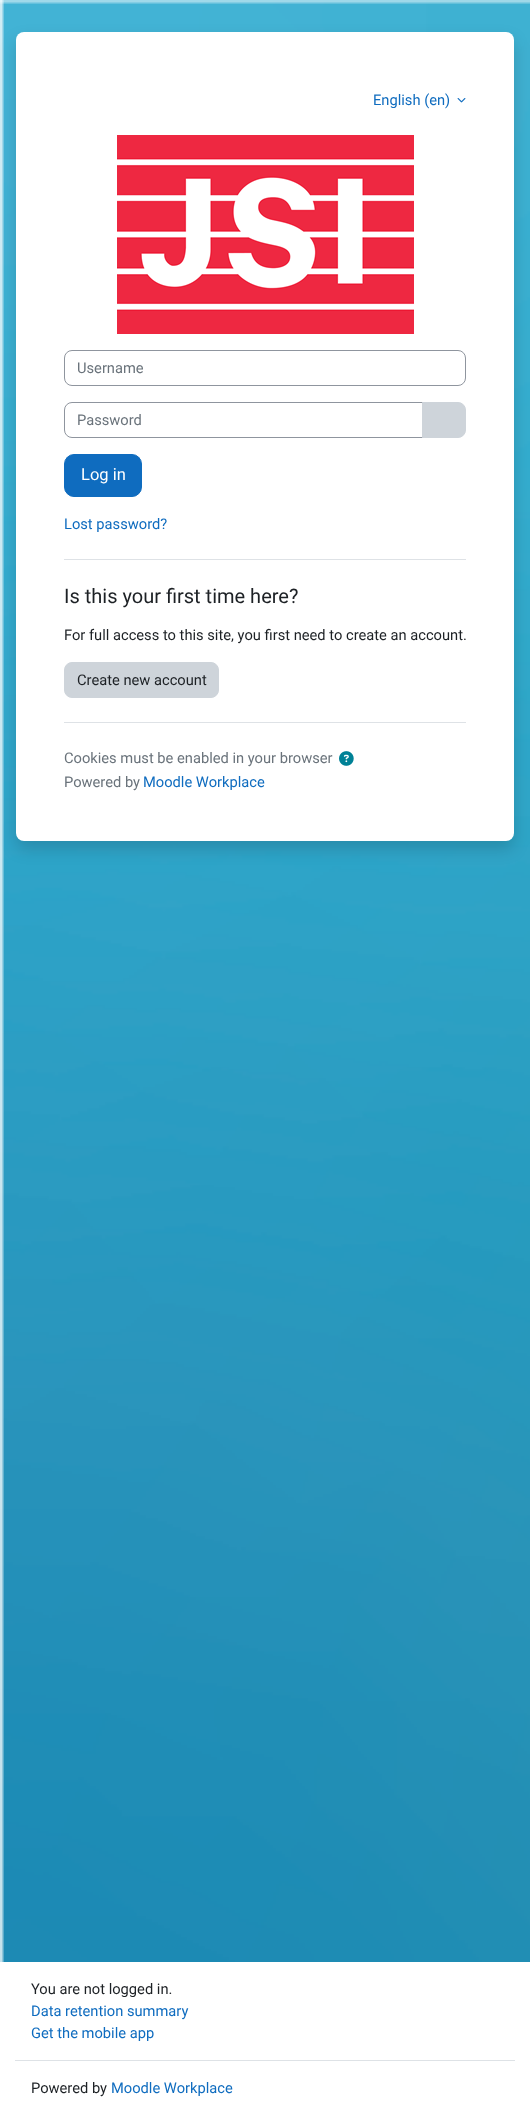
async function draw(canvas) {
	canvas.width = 530;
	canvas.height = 2115;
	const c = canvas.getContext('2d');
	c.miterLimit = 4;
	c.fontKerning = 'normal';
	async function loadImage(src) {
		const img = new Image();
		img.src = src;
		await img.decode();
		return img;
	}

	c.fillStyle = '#fff';
	c.fillRect(0, 0, 530, 2115);
	c.drawImage(await loadImage('img1.png'), 0, 0, 530, 1962);
	c.fillStyle = '#00000026';
	c.filter = 'blur(8px)';
	c.beginPath();
	c.roundRect(16, 40, 498, 809, 8);
	c.fill();
	c.filter = 'none';
	c.fillStyle = '#fff';
	c.beginPath();
	c.roundRect(16, 32, 498, 809, 8);
	c.fill();
	c.font = '14.7px Roboto';
	c.fillStyle = '#0f6cbf';
	c.fillText('English (en)', 373, 105);
	c.drawImage(await loadImage('img2.png'), 457, 98, 9, 5);
	c.drawImage(await loadImage('img3.png'), 117, 135, 297, 199);
	c.beginPath();
	c.roundRect(64.5, 350.5, 401, 35, 7.5);
	c.strokeStyle = '#8f959e';
	c.stroke();
	c.fillStyle = '#6a737b';
	c.fillText('Username', 77, 373);
	c.beginPath();
	c.roundRect(64.5, 402.5, 358, 35, [7.5, 0, 0, 7.5]);
	c.stroke();
	c.fillText('Password', 77, 425);
	c.fillStyle = '#ced4da';
	c.beginPath();
	c.roundRect(422.5, 402.5, 43, 35, [0, 7.5, 7.5, 0]);
	c.fill();
	c.strokeStyle = '#ced4da';
	c.stroke();
	c.fillStyle = '#0f6cbf';
	c.beginPath();
	c.roundRect(64.5, 454.5, 77, 42, 9.5);
	c.fill();
	c.strokeStyle = '#0f6cbf';
	c.stroke();
	c.font = '16.5px Roboto';
	c.fillStyle = '#fff';
	c.fillText('Log in', 81, 480);
	c.font = '14.7px Roboto';
	c.fillStyle = '#0f6cbf';
	c.fillText('Lost password?', 64, 529);
	c.fillStyle = '#dee2e6';
	c.fillRect(64, 559, 402, 1);
	c.font = '20px Roboto';
	c.fillStyle = '#1d2125';
	c.fillText('Is this your first time here?', 64, 603);
	c.font = '14.7px Roboto';
	c.fillText('For full access to this site, you first need to create an account.', 64, 640);
	c.fillStyle = '#ced4da';
	c.beginPath();
	c.roundRect(64.5, 662.5, 154, 35, 7.5);
	c.fill();
	c.strokeStyle = '#ced4da';
	c.stroke();
	c.fillStyle = '#1d2125';
	c.fillText('Create new account', 77, 685);
	c.fillStyle = '#dee2e6';
	c.fillRect(64, 722, 402, 1);
	c.fillStyle = '#6a737b';
	c.fillText('Cookies must be enabled in your browser', 64, 763);
	c.drawImage(await loadImage('img4.png'), 339, 751, 15, 15);
	c.fillText('Powered by', 64, 787);
	c.fillStyle = '#0f6cbf';
	c.fillText('Moodle Workplace', 143, 787);
	c.fillStyle = '#dee2e6';
	c.fillRect(15, 2060, 500, 1);
	c.fillStyle = '#1d2125';
	c.fillText('You are not logged in.', 31, 1994);
	c.fillStyle = '#0f6cbf';
	c.fillText('Data retention summary', 31, 2016);
	c.fillText('Get the mobile app', 31, 2038);
	c.fillStyle = '#1d2125';
	c.fillText('Powered by', 31, 2093);
	c.fillStyle = '#0f6cbf';
	c.fillText('Moodle Workplace', 111, 2093);
}

draw(document.querySelector('canvas'));
